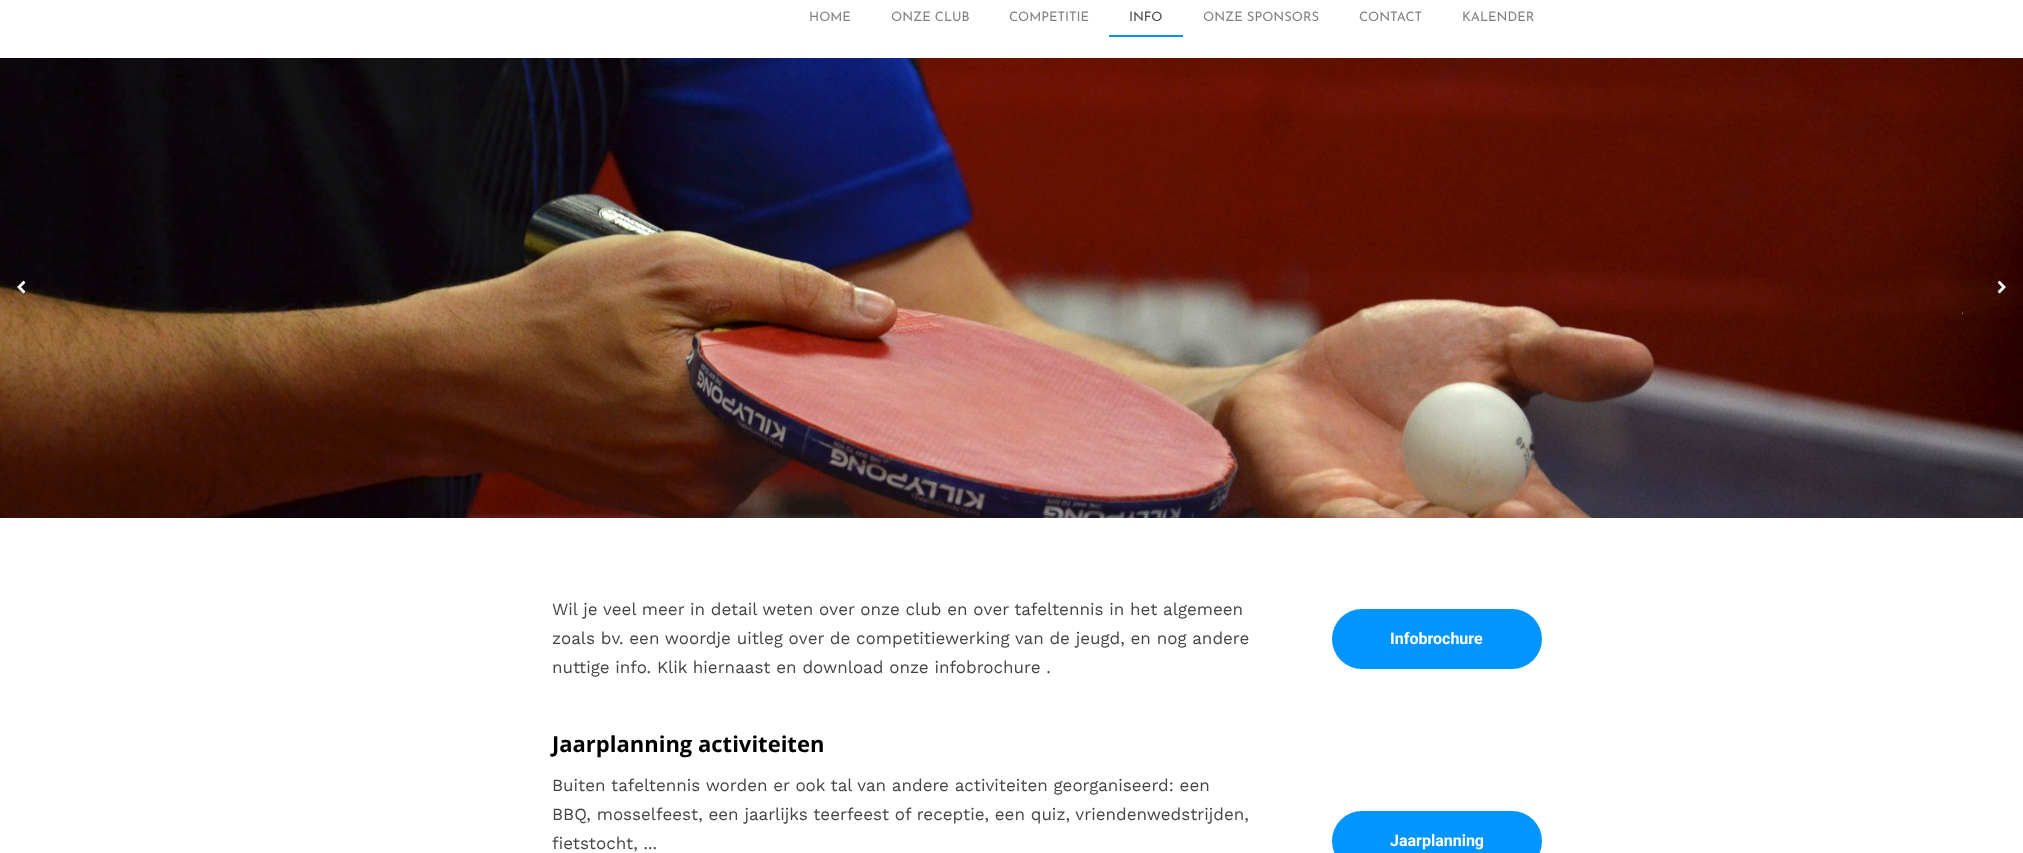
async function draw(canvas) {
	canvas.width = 2023;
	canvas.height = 853;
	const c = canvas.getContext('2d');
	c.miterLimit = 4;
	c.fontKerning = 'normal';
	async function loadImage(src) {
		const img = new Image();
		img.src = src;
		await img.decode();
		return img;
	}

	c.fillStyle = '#fff';
	c.fillRect(0, 0, 2023, 853);
	c.font = '13px Josefin Sans';
	c.fillStyle = '#857f85';
	for (const [text, x, y] of [
		['HOME', 809, 21],
		['ONZE CLUB', 891, 21],
		['COMPETITIE', 1009, 21],
	]) {
		c.fillText(text, x, y);
	}
	c.fillStyle = '#0093f5';
	c.fillRect(1109, 35, 74, 2);
	c.fillStyle = '#4d494d';
	c.fillText('INFO', 1129, 21);
	c.fillStyle = '#857f85';
	for (const [text, x, y] of [
		['ONZE SPONSORS', 1203, 21],
		['CONTACT', 1359, 21],
		['KALENDER', 1462, 21],
	]) {
		c.fillText(text, x, y);
	}
	c.drawImage(await loadImage('img1.png'), 0, 58, 2023, 460);
	c.drawImage(await loadImage('img2.png'), 17, 280, 9, 14);
	c.drawImage(await loadImage('img3.png'), 1997, 280, 9, 14);
	c.font = '17px Work Sans';
	c.fillStyle = '#454545';
	for (const [text, x, y] of [
		['Wil je veel meer in detail weten over onze club en over tafeltennis in het algemeen', 552, 615],
		['zoals bv. een woordje uitleg over de competitiewerking van de jeugd, en nog andere', 552, 644],
		['nuttige info. Klik hiernaast en download onze infobrochure .', 552, 673],
	]) {
		c.fillText(text, x, y);
	}
	c.fillStyle = '#0095ff';
	c.beginPath();
	c.roundRect(1332, 609, 210, 60, 30);
	c.fill();
	c.font = 'bold 16px Roboto';
	c.fillStyle = '#fff';
	c.fillText('Infobrochure', 1390, 644);
	c.font = 'bold 22px Open Sans';
	c.fillStyle = '#000';
	c.fillText('Jaarplanning activiteiten', 552, 752);
	c.font = '17px Work Sans';
	c.fillStyle = '#454545';
	for (const [text, x, y] of [
		['Buiten tafeltennis worden er ook tal van andere activiteiten georganiseerd: een', 552, 791],
		['BBQ, mosselfeest, een jaarlijks teerfeest of receptie, een quiz, vriendenwedstrijden,', 552, 820],
		['fietstocht, ...', 552, 849],
	]) {
		c.fillText(text, x, y);
	}
	c.fillStyle = '#0095ff';
	c.beginPath();
	c.roundRect(1332, 811, 210, 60, 30);
	c.fill();
	c.font = 'bold 16px Roboto';
	c.fillStyle = '#fff';
	c.fillText('Jaarplanning', 1390, 846);
}

draw(document.querySelector('canvas'));
